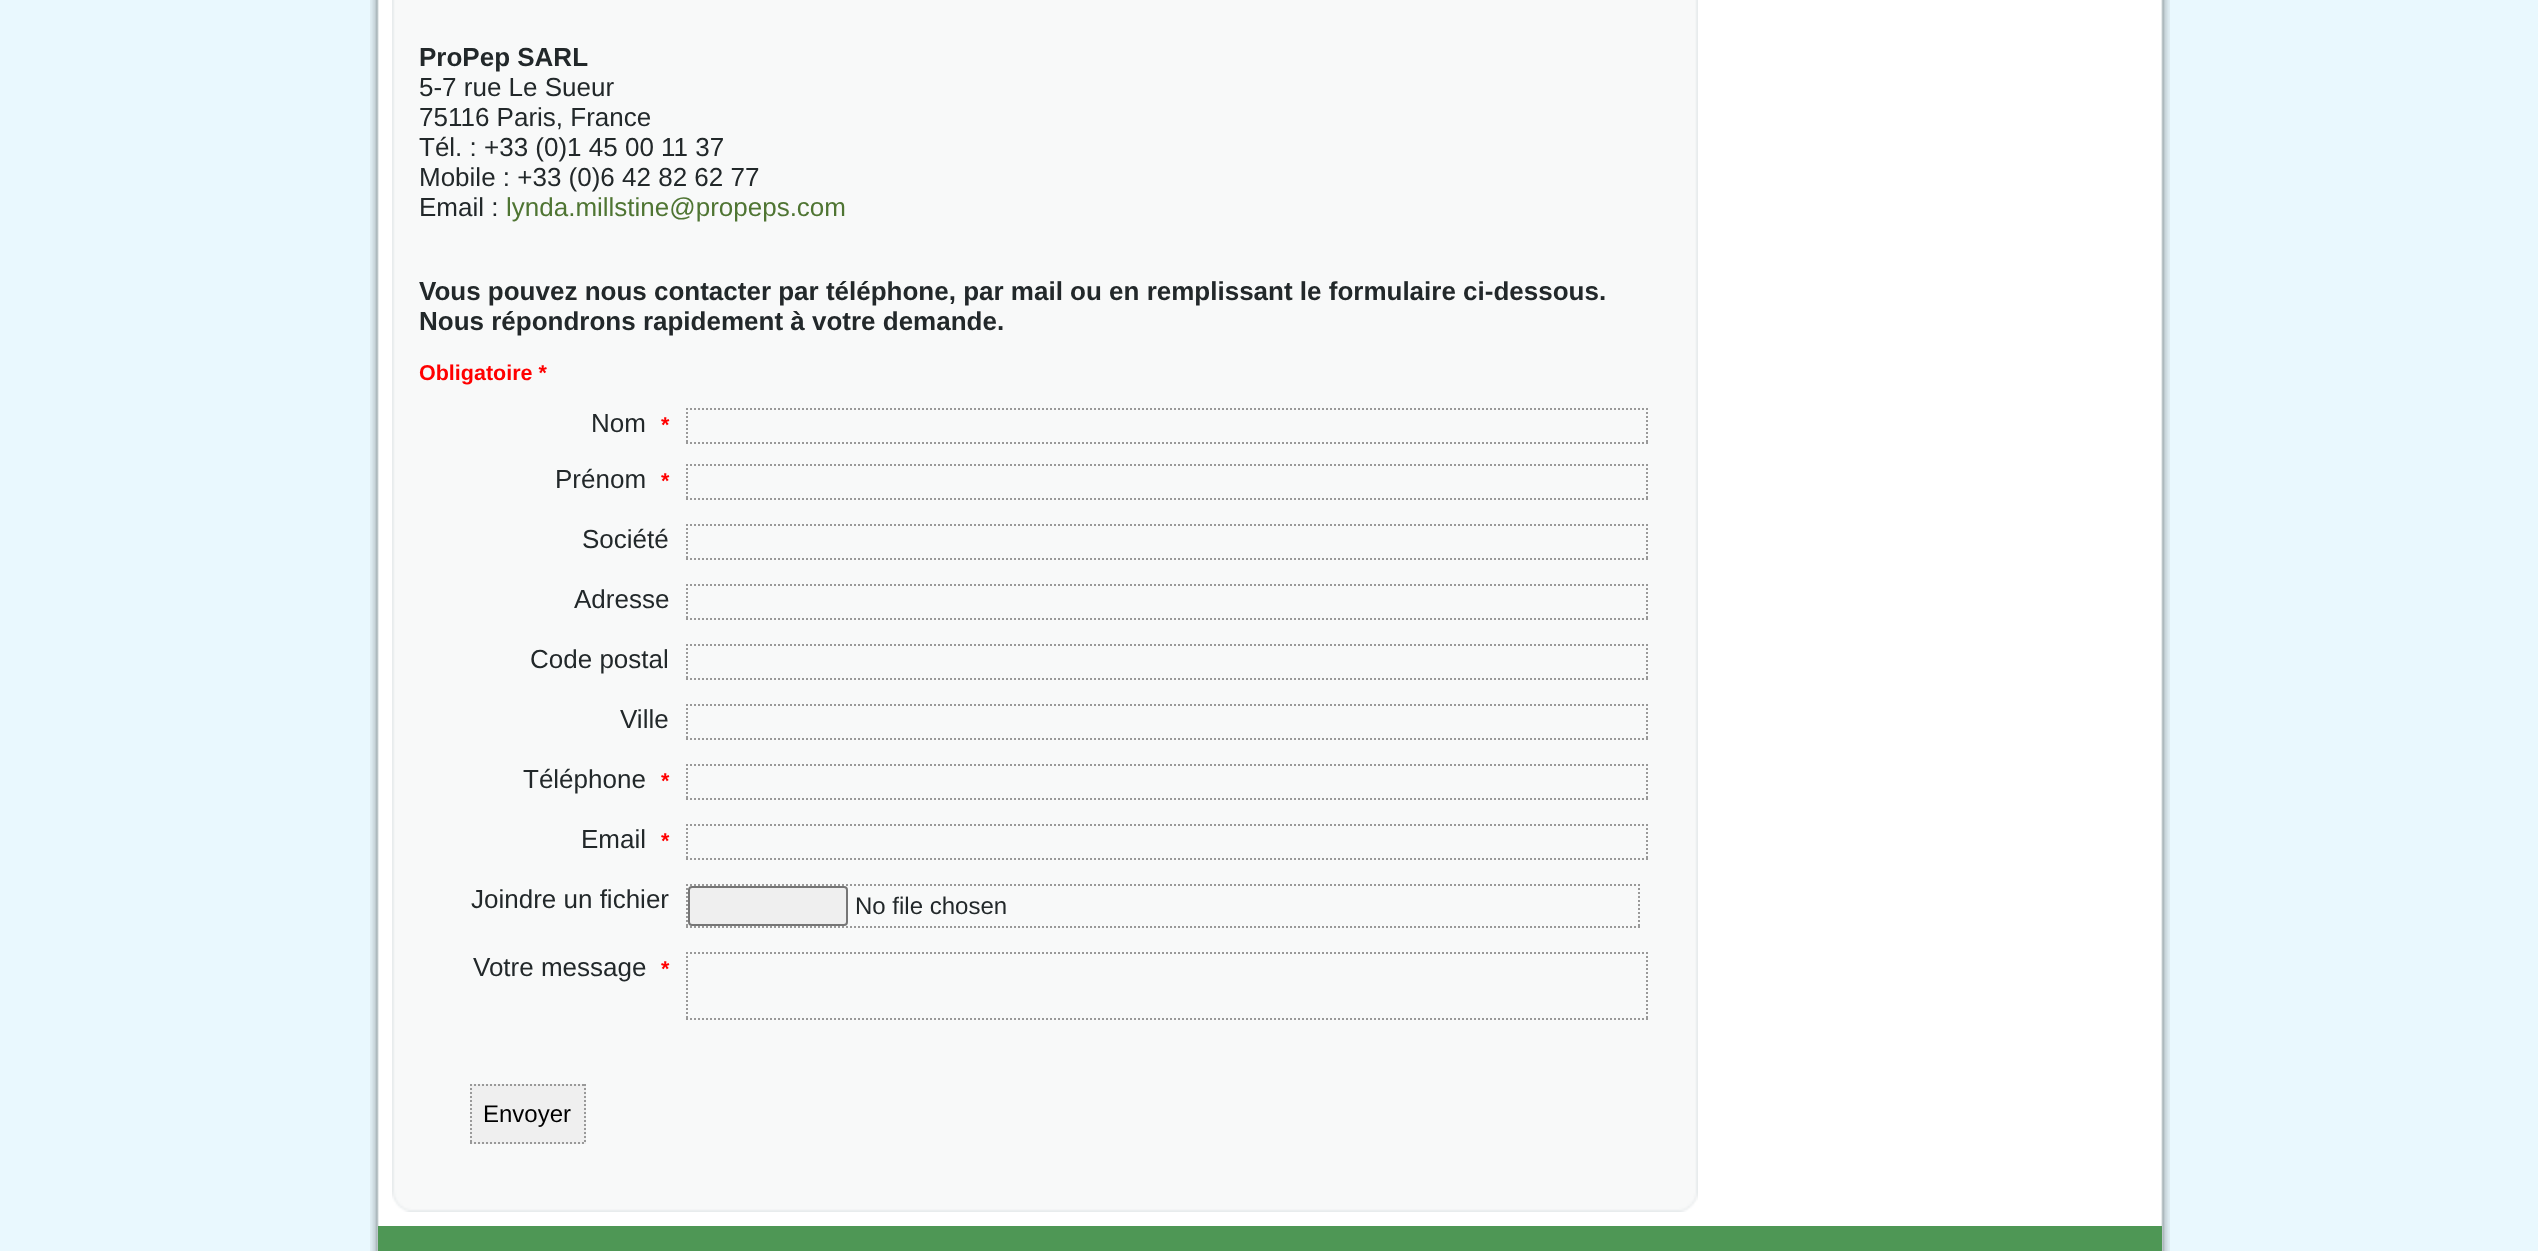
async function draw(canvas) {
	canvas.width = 2538;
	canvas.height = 1251;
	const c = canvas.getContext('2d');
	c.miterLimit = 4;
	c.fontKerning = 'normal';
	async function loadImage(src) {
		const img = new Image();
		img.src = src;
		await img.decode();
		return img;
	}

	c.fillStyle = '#e9f8fe';
	c.fillRect(0, 0, 2538, 1251);
	c.drawImage(await loadImage('img1.png'), 370, 0, 1774, 1251);
	c.drawImage(await loadImage('img2.png'), 2144, 0, 26, 1251);
	c.drawImage(await loadImage('img3.png'), 392, 0, 1284, 1190);
	c.drawImage(await loadImage('img4.png'), 1676, 0, 22, 1190);
	c.font = 'bold 26px Liberation Sans';
	c.fillStyle = '#22282a';
	c.fillText('ProPep SARL', 419, 66);
	c.font = '26px Liberation Sans';
	for (const [text, x, y] of [
		['5-7 rue Le Sueur', 419, 96],
		['75116 Paris, France', 419, 126],
		['Tél. : +33 (0)1 45 00 11 37', 419, 156],
		['Mobile : +33 (0)6 42 82 62 77', 419, 186],
		['Email :', 419, 216],
	]) {
		c.fillText(text, x, y);
	}
	c.fillStyle = '#4f7533';
	c.fillText('lynda.millstine@propeps.com', 506, 216);
	c.font = 'bold 26px Liberation Sans';
	c.fillStyle = '#22282a';
	c.fillText('Vous pouvez nous contacter par téléphone, par mail ou en remplissant le formulaire ci-dessous.', 419, 300);
	c.fillText('Nous répondrons rapidement à votre demande.', 419, 330);
	c.font = 'bold 21.5px Liberation Sans';
	c.fillStyle = '#f00';
	c.fillText('Obligatoire *', 419, 380);
	c.font = '26px Liberation Sans';
	c.fillStyle = '#22282a';
	c.fillText('Nom', 591, 432);
	c.font = 'bold 21.5px Liberation Sans';
	c.fillStyle = '#f00';
	c.fillText('*', 661, 432);
	c.beginPath();
	c.moveTo(686, 409);
	c.lineTo(1648, 409);
	c.strokeStyle = '#999';
	c.lineWidth = 2;
	c.setLineDash([2, 2]);
	c.stroke();
	c.beginPath();
	c.moveTo(1647, 408);
	c.lineTo(1647, 444);
	c.stroke();
	c.beginPath();
	c.moveTo(686, 443);
	c.lineTo(1648, 443);
	c.stroke();
	c.beginPath();
	c.moveTo(687, 408);
	c.lineTo(687, 444);
	c.stroke();
	c.font = '26px Liberation Sans';
	c.fillStyle = '#22282a';
	c.fillText('Prénom', 555, 488);
	c.font = 'bold 21.5px Liberation Sans';
	c.fillStyle = '#f00';
	c.fillText('*', 661, 488);
	c.beginPath();
	c.moveTo(686, 465);
	c.lineTo(1648, 465);
	c.stroke();
	c.beginPath();
	c.moveTo(1647, 464);
	c.lineTo(1647, 500);
	c.stroke();
	c.beginPath();
	c.moveTo(686, 499);
	c.lineTo(1648, 499);
	c.stroke();
	c.beginPath();
	c.moveTo(687, 464);
	c.lineTo(687, 500);
	c.stroke();
	c.font = '26px Liberation Sans';
	c.fillStyle = '#22282a';
	c.fillText('Société', 582, 548);
	c.beginPath();
	c.moveTo(686, 525);
	c.lineTo(1648, 525);
	c.stroke();
	c.beginPath();
	c.moveTo(1647, 524);
	c.lineTo(1647, 560);
	c.stroke();
	c.beginPath();
	c.moveTo(686, 559);
	c.lineTo(1648, 559);
	c.stroke();
	c.beginPath();
	c.moveTo(687, 524);
	c.lineTo(687, 560);
	c.stroke();
	c.fillText('Adresse', 574, 608);
	c.beginPath();
	c.moveTo(686, 585);
	c.lineTo(1648, 585);
	c.stroke();
	c.beginPath();
	c.moveTo(1647, 584);
	c.lineTo(1647, 620);
	c.stroke();
	c.beginPath();
	c.moveTo(686, 619);
	c.lineTo(1648, 619);
	c.stroke();
	c.beginPath();
	c.moveTo(687, 584);
	c.lineTo(687, 620);
	c.stroke();
	c.fillText('Code postal', 530, 668);
	c.beginPath();
	c.moveTo(686, 645);
	c.lineTo(1648, 645);
	c.stroke();
	c.beginPath();
	c.moveTo(1647, 644);
	c.lineTo(1647, 680);
	c.stroke();
	c.beginPath();
	c.moveTo(686, 679);
	c.lineTo(1648, 679);
	c.stroke();
	c.beginPath();
	c.moveTo(687, 644);
	c.lineTo(687, 680);
	c.stroke();
	c.fillText('Ville', 620, 728);
	c.beginPath();
	c.moveTo(686, 705);
	c.lineTo(1648, 705);
	c.stroke();
	c.beginPath();
	c.moveTo(1647, 704);
	c.lineTo(1647, 740);
	c.stroke();
	c.beginPath();
	c.moveTo(686, 739);
	c.lineTo(1648, 739);
	c.stroke();
	c.beginPath();
	c.moveTo(687, 704);
	c.lineTo(687, 740);
	c.stroke();
	c.fillText('Téléphone', 523, 788);
	c.font = 'bold 21.5px Liberation Sans';
	c.fillStyle = '#f00';
	c.fillText('*', 661, 788);
	c.beginPath();
	c.moveTo(686, 765);
	c.lineTo(1648, 765);
	c.stroke();
	c.beginPath();
	c.moveTo(1647, 764);
	c.lineTo(1647, 800);
	c.stroke();
	c.beginPath();
	c.moveTo(686, 799);
	c.lineTo(1648, 799);
	c.stroke();
	c.beginPath();
	c.moveTo(687, 764);
	c.lineTo(687, 800);
	c.stroke();
	c.font = '26px Liberation Sans';
	c.fillStyle = '#22282a';
	c.fillText('Email', 581, 848);
	c.font = 'bold 21.5px Liberation Sans';
	c.fillStyle = '#f00';
	c.fillText('*', 661, 848);
	c.beginPath();
	c.moveTo(686, 825);
	c.lineTo(1648, 825);
	c.stroke();
	c.beginPath();
	c.moveTo(1647, 824);
	c.lineTo(1647, 860);
	c.stroke();
	c.beginPath();
	c.moveTo(686, 859);
	c.lineTo(1648, 859);
	c.stroke();
	c.beginPath();
	c.moveTo(687, 824);
	c.lineTo(687, 860);
	c.stroke();
	c.font = '26px Liberation Sans';
	c.fillStyle = '#22282a';
	c.fillText('Joindre un fichier', 471, 908);
	c.beginPath();
	c.moveTo(686, 885);
	c.lineTo(1640, 885);
	c.stroke();
	c.beginPath();
	c.moveTo(1639, 884);
	c.lineTo(1639, 928);
	c.stroke();
	c.beginPath();
	c.moveTo(686, 927);
	c.lineTo(1640, 927);
	c.stroke();
	c.beginPath();
	c.moveTo(687, 884);
	c.lineTo(687, 928);
	c.stroke();
	c.fillStyle = '#efefef';
	c.beginPath();
	c.roundRect(689, 887, 158, 38, 3);
	c.fill();
	c.strokeStyle = '#767676';
	c.setLineDash([]);
	c.stroke();
	c.font = '24px Liberation Sans';
	c.fillStyle = '#22282a';
	c.fillText('No file chosen', 855, 914);
	c.font = '26px Liberation Sans';
	c.fillText('Votre message', 473, 976);
	c.font = 'bold 21.5px Liberation Sans';
	c.fillStyle = '#f00';
	c.fillText('*', 661, 976);
	c.beginPath();
	c.moveTo(686, 953);
	c.lineTo(1648, 953);
	c.strokeStyle = '#999';
	c.setLineDash([2, 2]);
	c.stroke();
	c.beginPath();
	c.moveTo(1647, 952);
	c.lineTo(1647, 1020);
	c.stroke();
	c.beginPath();
	c.moveTo(686, 1019);
	c.lineTo(1648, 1019);
	c.stroke();
	c.beginPath();
	c.moveTo(687, 952);
	c.lineTo(687, 1020);
	c.stroke();
	c.fillStyle = '#efefef';
	c.fillRect(470, 1084, 116, 60);
	c.beginPath();
	c.moveTo(470, 1085);
	c.lineTo(586, 1085);
	c.stroke();
	c.beginPath();
	c.moveTo(585, 1084);
	c.lineTo(585, 1144);
	c.stroke();
	c.beginPath();
	c.moveTo(470, 1143);
	c.lineTo(586, 1143);
	c.stroke();
	c.beginPath();
	c.moveTo(471, 1084);
	c.lineTo(471, 1144);
	c.stroke();
	c.font = '24px Liberation Sans';
	c.fillStyle = '#000';
	c.fillText('Envoyer', 483, 1122);
	c.drawImage(await loadImage('img5.png'), 392, 1190, 1284, 22);
	c.drawImage(await loadImage('img6.png'), 1676, 1190, 22, 22);
	c.fillStyle = '#4e9755';
	c.fillRect(378, 1226, 1784, 25);
}

draw(document.querySelector('canvas'));
